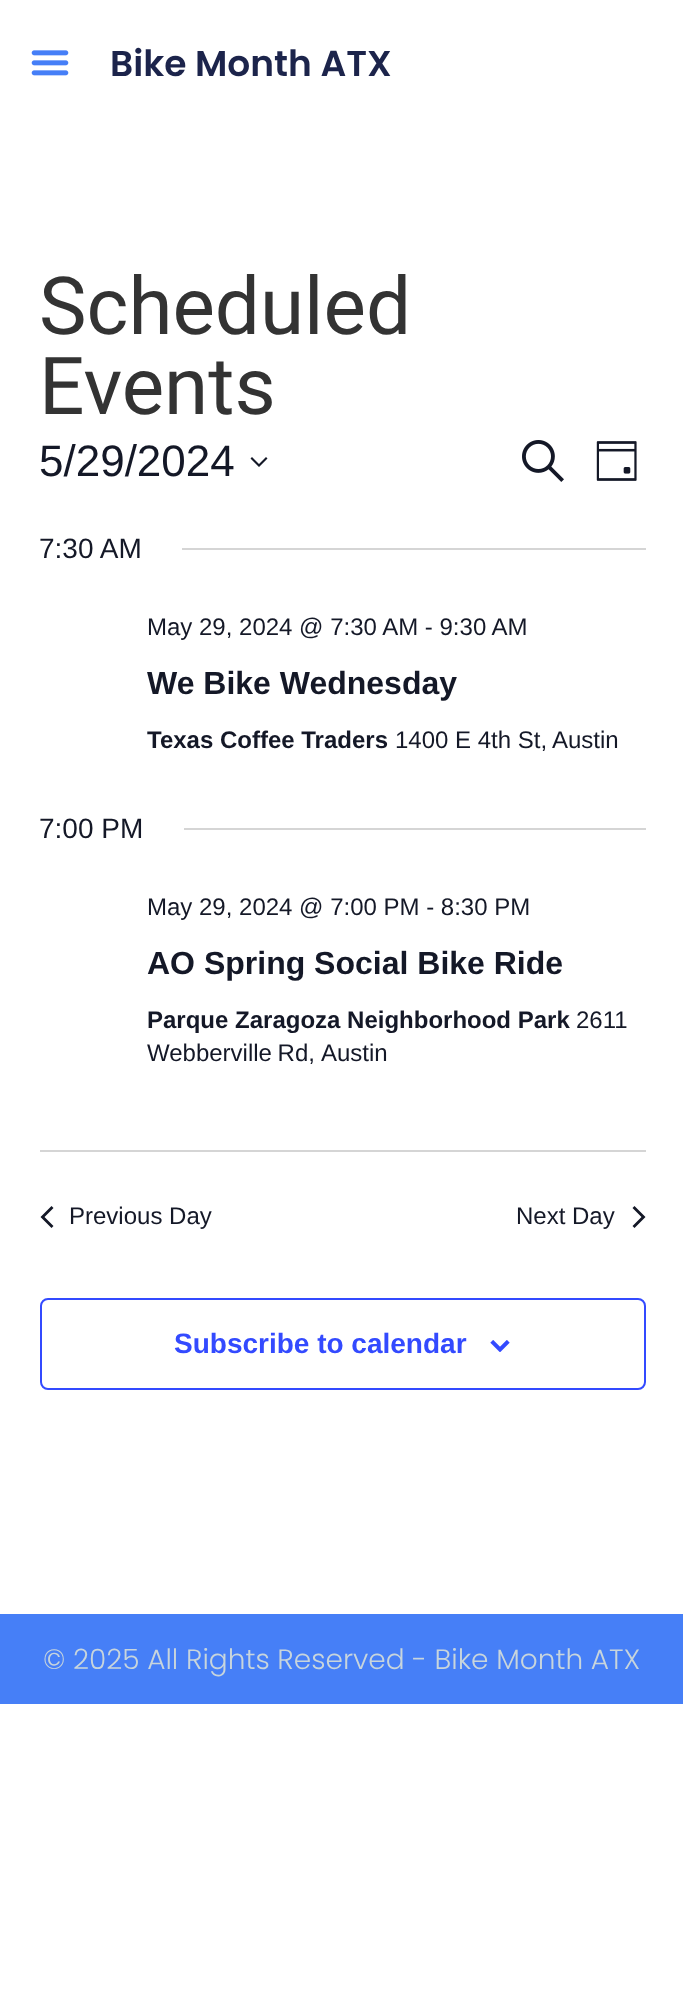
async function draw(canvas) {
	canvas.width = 683;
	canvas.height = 1993;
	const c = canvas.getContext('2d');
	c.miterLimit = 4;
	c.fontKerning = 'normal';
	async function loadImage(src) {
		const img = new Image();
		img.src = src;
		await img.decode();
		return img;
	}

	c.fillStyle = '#fff';
	c.fillRect(0, 0, 683, 1993);
	c.drawImage(await loadImage('img1.png'), 31, 50, 38, 26);
	c.font = '600 36px Poppins';
	c.fillStyle = '#1c244b';
	c.fillText('Bike Month ATX', 110, 76);
	c.font = '80px Roboto';
	c.fillStyle = '#333';
	c.fillText('Scheduled', 39, 334);
	c.fillText('Events', 39, 414);
	c.font = '44px Liberation Sans';
	c.fillStyle = '#141827';
	c.fillText('5/29/2024', 39, 476);
	c.beginPath();
	c.moveTo(252, 457);
	c.lineTo(259, 464);
	c.lineTo(266, 457);
	c.lineTo(267.5, 458.5);
	c.lineTo(259, 467);
	c.lineTo(250.5, 458.5);
	c.closePath();
	c.fill('evenodd');
	c.drawImage(await loadImage('img2.png'), 522, 440, 42, 42);
	c.drawImage(await loadImage('img3.png'), 596, 441, 41, 40);
	c.font = '28px Liberation Sans';
	c.fillText('7:30 AM', 39, 558);
	c.fillStyle = '#d5d5d5';
	c.fillRect(182, 548, 464, 2);
	c.font = '24px Liberation Sans';
	c.fillStyle = '#141827';
	c.fillText('May 29, 2024 @ 7:30 AM - 9:30 AM', 147, 635);
	c.font = 'bold 32px Liberation Sans';
	c.fillText('We Bike Wednesday', 147, 694);
	c.font = 'bold 24px Liberation Sans';
	c.fillText('Texas Coffee Traders', 147, 748);
	c.font = '24px Liberation Sans';
	c.fillText('1400 E 4th St,', 395, 748);
	c.fillText('Austin', 552, 748);
	c.font = '28px Liberation Sans';
	c.fillText('7:00 PM', 39, 838);
	c.fillStyle = '#d5d5d5';
	c.fillRect(184, 828, 462, 2);
	c.font = '24px Liberation Sans';
	c.fillStyle = '#141827';
	c.fillText('May 29, 2024 @ 7:00 PM - 8:30 PM', 147, 915);
	c.font = 'bold 32px Liberation Sans';
	c.fillText('AO Spring Social Bike Ride', 147, 974);
	c.font = 'bold 24px Liberation Sans';
	c.fillText('Parque Zaragoza Neighborhood Park', 147, 1028);
	c.font = '24px Liberation Sans';
	c.fillText('2611', 576, 1028);
	c.wordSpacing = '-1px';
	c.fillText('Webberville Rd,', 147, 1061);
	c.wordSpacing = '0px';
	c.fillText('Austin', 321, 1061);
	c.fillStyle = '#d5d5d5';
	c.fillRect(40, 1150, 606, 2);
	c.fillStyle = '#141827';
	c.beginPath();
	c.moveTo(53.5, 1226);
	c.lineTo(51.5, 1228);
	c.lineTo(40.5, 1217);
	c.lineTo(51.5, 1206);
	c.lineTo(53.5, 1208);
	c.lineTo(44.5, 1217);
	c.closePath();
	c.fill();
	c.fillText('Previous Day', 69, 1224);
	c.fillText('Next Day', 516, 1224);
	c.beginPath();
	c.moveTo(632.5, 1208);
	c.lineTo(634.5, 1206);
	c.lineTo(645.5, 1217);
	c.lineTo(634.5, 1228);
	c.lineTo(632.5, 1226);
	c.lineTo(641.5, 1217);
	c.closePath();
	c.fill();
	c.beginPath();
	c.roundRect(41, 1299, 604, 90, 7);
	c.strokeStyle = '#334aff';
	c.lineWidth = 2;
	c.stroke();
	c.font = 'bold 28px Liberation Sans';
	c.fillStyle = '#334aff';
	c.fillText('Subscribe to calendar', 174, 1353);
	c.drawImage(await loadImage('img4.png'), 490, 1340, 20, 12);
	c.fillStyle = '#467ff7';
	c.fillRect(0, 1614, 683, 90);
	c.font = '300 28px Poppins';
	c.fillStyle = '#c8d5dc';
	c.fillText('© 2025 All Rights Reserved - Bike Month ATX', 43, 1669);
}

draw(document.querySelector('canvas'));
